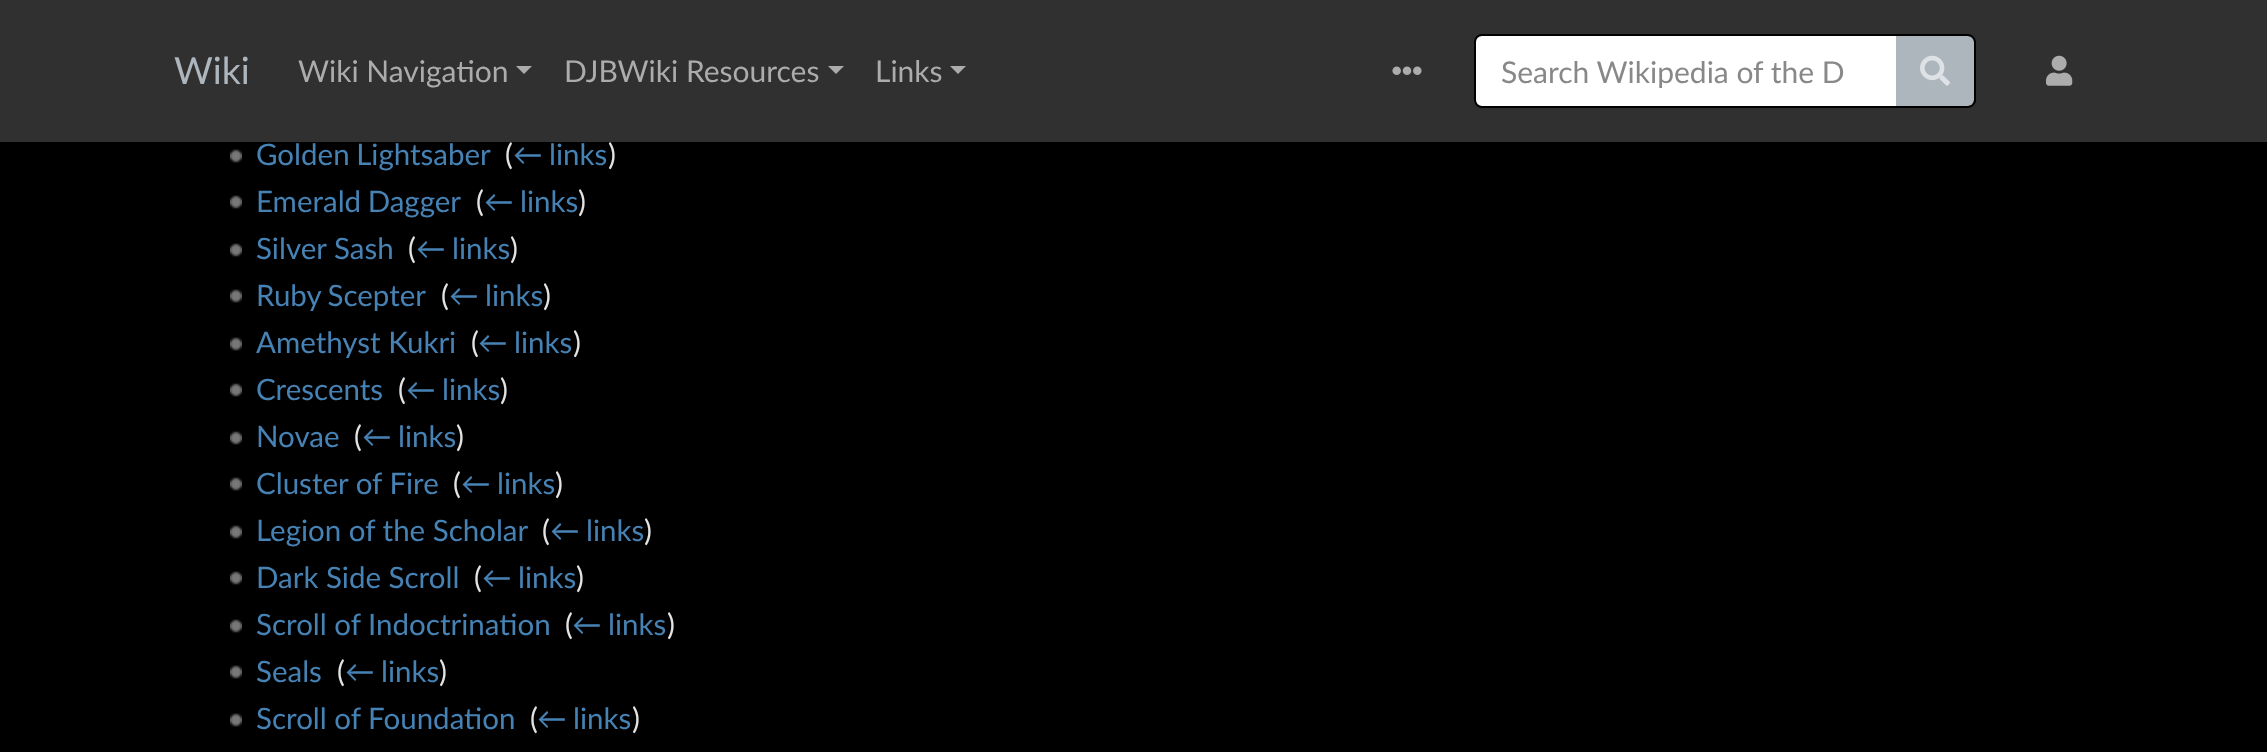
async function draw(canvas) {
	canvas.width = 2267;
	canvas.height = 752;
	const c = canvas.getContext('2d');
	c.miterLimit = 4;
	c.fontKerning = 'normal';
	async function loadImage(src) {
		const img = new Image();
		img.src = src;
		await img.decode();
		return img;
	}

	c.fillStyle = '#000';
	c.fillRect(0, 0, 2267, 752);
	c.fillStyle = '#303030';
	c.fillRect(0, 0, 2267, 142);
	c.font = '37.5px Lato';
	c.fillStyle = '#adb5bd';
	c.fillText('Wiki', 174, 84);
	c.font = '30px Lato';
	c.fillStyle = '#acacac';
	c.fillText('Wiki Navigation', 298, 82);
	c.beginPath();
	c.moveTo(516, 66);
	c.lineTo(532, 66);
	c.lineTo(524, 74);
	c.closePath();
	c.fill();
	c.fillText('DJBWiki Resources', 564, 82);
	c.beginPath();
	c.moveTo(828, 66);
	c.lineTo(844, 66);
	c.lineTo(836, 74);
	c.closePath();
	c.fill();
	c.fillText('Links', 875, 82);
	c.beginPath();
	c.moveTo(950, 66);
	c.lineTo(966, 66);
	c.lineTo(958, 74);
	c.closePath();
	c.fill();
	c.drawImage(await loadImage('img1.png'), 1392, 66, 30, 9);
	c.fillStyle = '#fff';
	c.beginPath();
	c.roundRect(1475, 35, 422, 72, [7, 0, 0, 7]);
	c.fill();
	c.strokeStyle = '#000';
	c.lineWidth = 2;
	c.stroke();
	c.save();
	c.beginPath();
	c.rect(1500, 52, 344, 36);
	c.clip();
	c.fillStyle = '#888';
	c.fillText('Search Wikipedia of the D', 1501, 83);
	c.restore();
	c.fillStyle = '#adb5bd';
	c.beginPath();
	c.roundRect(1896, 36, 78, 70, [0, 6, 6, 0]);
	c.fill();
	c.fillStyle = '#000';
	c.beginPath();
	c.moveTo(1896, 34);
	c.lineTo(1968, 34);
	c.bezierCurveTo(1972, 34, 1976, 38, 1976, 42);
	c.lineTo(1976, 100);
	c.bezierCurveTo(1976, 104, 1972, 108, 1968, 108);
	c.lineTo(1896, 108);
	c.closePath();
	c.moveTo(1896, 36);
	c.lineTo(1968, 36);
	c.bezierCurveTo(1971, 36, 1974, 39, 1974, 42);
	c.lineTo(1974, 100);
	c.bezierCurveTo(1974, 103, 1971, 106, 1968, 106);
	c.lineTo(1896, 106);
	c.closePath();
	c.fill('evenodd');
	c.drawImage(await loadImage('img2.png'), 1920, 55, 30, 31);
	c.drawImage(await loadImage('img3.png'), 2046, 55, 27, 31);
	c.drawImage(await loadImage('img4.png'), 230, 149, 12, 14);
	c.wordSpacing = '-1px';
	c.font = '29.5px Lato';
	c.fillStyle = '#4682b4';
	c.fillText('Golden Lightsaber', 256, 165);
	c.wordSpacing = '0px';
	c.fillStyle = '#e3e3e3';
	c.fillText('(', 505, 165);
	c.wordSpacing = '-1px';
	c.fillStyle = '#4682b4';
	c.fillText('← links', 513, 165);
	c.wordSpacing = '0px';
	c.fillStyle = '#e3e3e3';
	c.fillText(')', 608, 165);
	c.drawImage(await loadImage('img4.png'), 230, 195, 12, 14);
	c.wordSpacing = '-1px';
	c.fillStyle = '#4682b4';
	c.fillText('Emerald Dagger', 256, 212);
	c.wordSpacing = '0px';
	c.fillStyle = '#e3e3e3';
	c.fillText('(', 476, 212);
	c.wordSpacing = '-1px';
	c.fillStyle = '#4682b4';
	c.fillText('← links', 484, 212);
	c.wordSpacing = '0px';
	c.fillStyle = '#e3e3e3';
	c.fillText(')', 578, 212);
	c.drawImage(await loadImage('img4.png'), 230, 243, 12, 14);
	c.fillStyle = '#4682b4';
	c.fillText('Silver Sash', 256, 259);
	c.fillStyle = '#e3e3e3';
	c.fillText('(', 408, 259);
	c.wordSpacing = '-1px';
	c.fillStyle = '#4682b4';
	c.fillText('← links', 416, 259);
	c.wordSpacing = '0px';
	c.fillStyle = '#e3e3e3';
	c.fillText(')', 510, 259);
	c.drawImage(await loadImage('img4.png'), 230, 289, 12, 14);
	c.wordSpacing = '-1px';
	c.fillStyle = '#4682b4';
	c.fillText('Ruby Scepter', 256, 306);
	c.wordSpacing = '0px';
	c.fillStyle = '#e3e3e3';
	c.fillText('(', 441, 306);
	c.wordSpacing = '-1px';
	c.fillStyle = '#4682b4';
	c.fillText('← links', 449, 306);
	c.wordSpacing = '0px';
	c.fillStyle = '#e3e3e3';
	c.fillText(')', 543, 306);
	c.drawImage(await loadImage('img4.png'), 230, 337, 12, 14);
	c.fillStyle = '#4682b4';
	c.fillText('Amethyst Kukri', 256, 353);
	c.fillStyle = '#e3e3e3';
	c.fillText('(', 471, 353);
	c.wordSpacing = '-1px';
	c.fillStyle = '#4682b4';
	c.fillText('← links', 478, 353);
	c.wordSpacing = '0px';
	c.fillStyle = '#e3e3e3';
	c.fillText(')', 573, 353);
	c.drawImage(await loadImage('img4.png'), 230, 383, 12, 14);
	c.fillStyle = '#4682b4';
	c.fillText('Crescents', 256, 400);
	c.fillStyle = '#e3e3e3';
	c.fillText('(', 398, 400);
	c.wordSpacing = '-1px';
	c.fillStyle = '#4682b4';
	c.fillText('← links', 406, 400);
	c.wordSpacing = '0px';
	c.fillStyle = '#e3e3e3';
	c.fillText(')', 500, 400);
	c.drawImage(await loadImage('img4.png'), 230, 431, 12, 14);
	c.fillStyle = '#4682b4';
	c.fillText('Novae', 256, 447);
	c.fillStyle = '#e3e3e3';
	c.fillText('(', 354, 447);
	c.wordSpacing = '-1px';
	c.fillStyle = '#4682b4';
	c.fillText('← links', 362, 447);
	c.wordSpacing = '0px';
	c.fillStyle = '#e3e3e3';
	c.fillText(')', 456, 447);
	c.drawImage(await loadImage('img4.png'), 230, 477, 12, 14);
	c.fillStyle = '#4682b4';
	c.fillText('Cluster of Fire', 256, 494);
	c.fillStyle = '#e3e3e3';
	c.fillText('(', 453, 494);
	c.wordSpacing = '-1px';
	c.fillStyle = '#4682b4';
	c.fillText('← links', 461, 494);
	c.wordSpacing = '0px';
	c.fillStyle = '#e3e3e3';
	c.fillText(')', 555, 494);
	c.drawImage(await loadImage('img4.png'), 230, 525, 12, 14);
	c.fillStyle = '#4682b4';
	c.fillText('Legion of the Scholar', 256, 541);
	c.fillStyle = '#e3e3e3';
	c.fillText('(', 542, 541);
	c.wordSpacing = '-1px';
	c.fillStyle = '#4682b4';
	c.fillText('← links', 550, 541);
	c.wordSpacing = '0px';
	c.fillStyle = '#e3e3e3';
	c.fillText(')', 644, 541);
	c.drawImage(await loadImage('img4.png'), 230, 571, 12, 14);
	c.fillStyle = '#4682b4';
	c.fillText('Dark Side Scroll', 256, 588);
	c.fillStyle = '#e3e3e3';
	c.fillText('(', 474, 588);
	c.wordSpacing = '-1px';
	c.fillStyle = '#4682b4';
	c.fillText('← links', 482, 588);
	c.wordSpacing = '0px';
	c.fillStyle = '#e3e3e3';
	c.fillText(')', 576, 588);
	c.drawImage(await loadImage('img4.png'), 230, 619, 12, 14);
	c.fillStyle = '#4682b4';
	c.fillText('Scroll of Indoctrination', 256, 635);
	c.fillStyle = '#e3e3e3';
	c.fillText('(', 565, 635);
	c.wordSpacing = '-1px';
	c.fillStyle = '#4682b4';
	c.fillText('← links', 572, 635);
	c.wordSpacing = '0px';
	c.fillStyle = '#e3e3e3';
	c.fillText(')', 667, 635);
	c.drawImage(await loadImage('img4.png'), 230, 665, 12, 14);
	c.fillStyle = '#4682b4';
	c.fillText('Seals', 256, 682);
	c.fillStyle = '#e3e3e3';
	c.fillText('(', 337, 682);
	c.wordSpacing = '-1px';
	c.fillStyle = '#4682b4';
	c.fillText('← links', 345, 682);
	c.wordSpacing = '0px';
	c.fillStyle = '#e3e3e3';
	c.fillText(')', 439, 682);
	c.drawImage(await loadImage('img4.png'), 230, 713, 12, 14);
	c.fillStyle = '#4682b4';
	c.fillText('Scroll of Foundation', 256, 729);
	c.fillStyle = '#e3e3e3';
	c.fillText('(', 530, 729);
	c.wordSpacing = '-1px';
	c.fillStyle = '#4682b4';
	c.fillText('← links', 537, 729);
	c.wordSpacing = '0px';
	c.fillStyle = '#e3e3e3';
	c.fillText(')', 632, 729);
}

draw(document.querySelector('canvas'));
